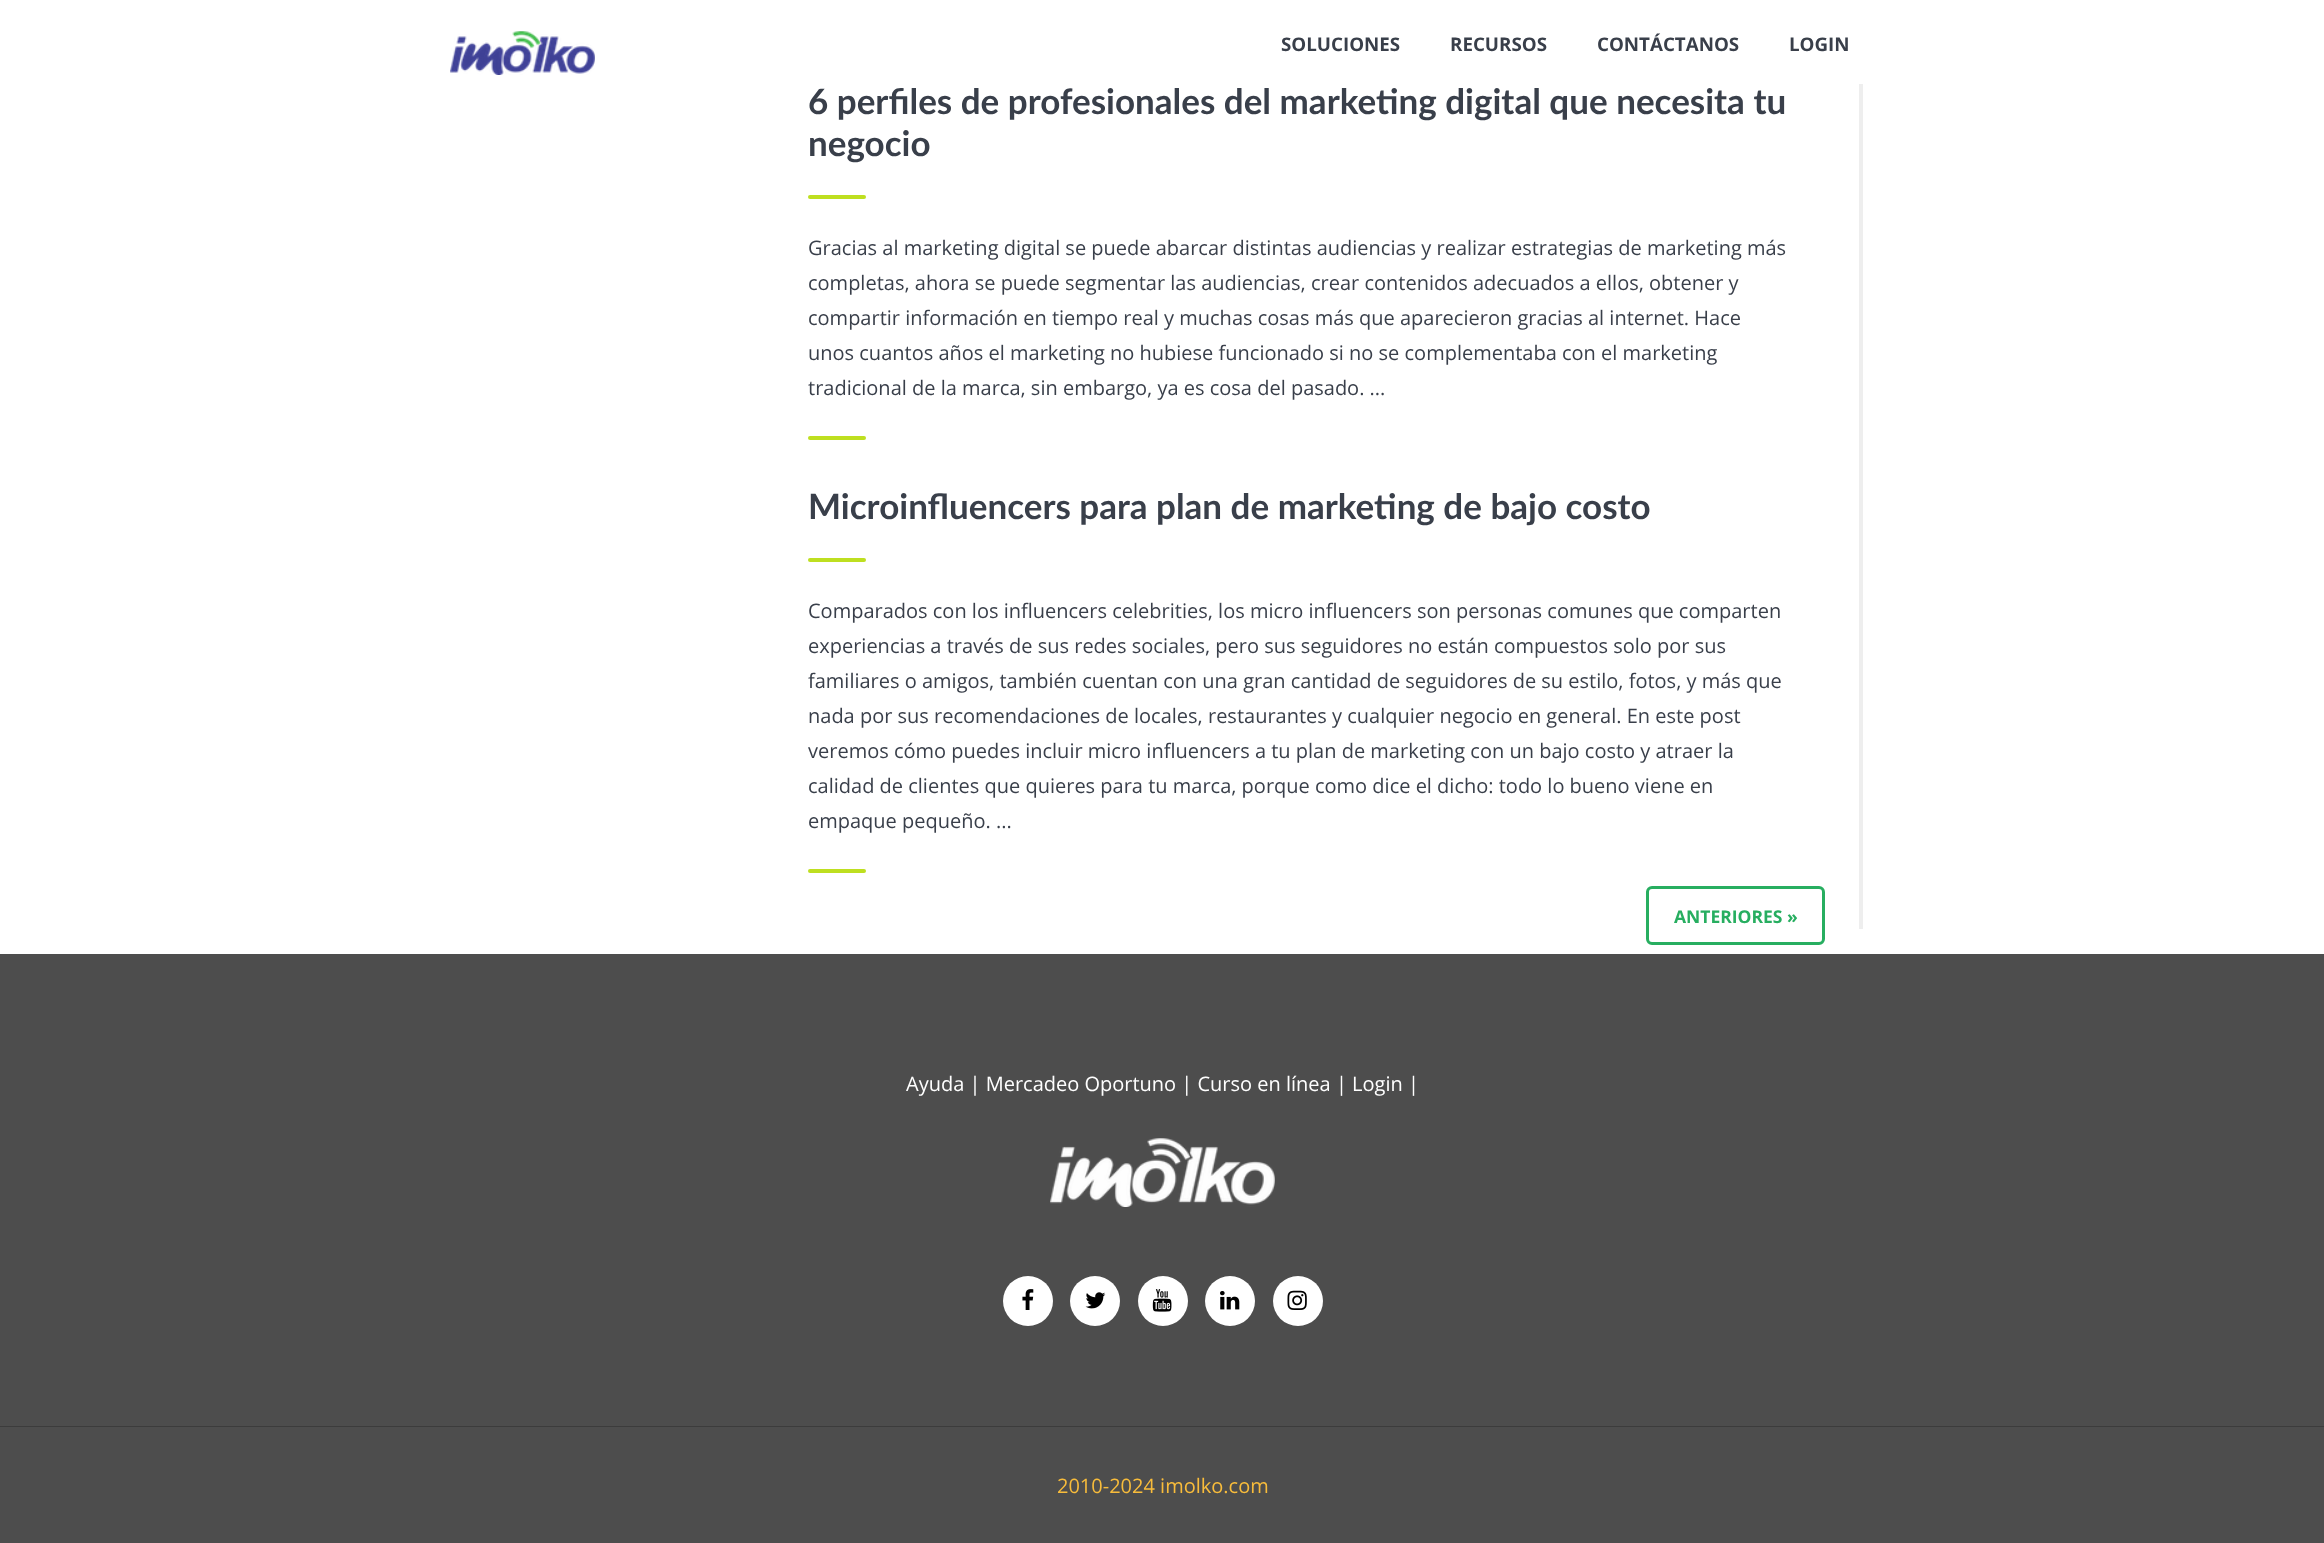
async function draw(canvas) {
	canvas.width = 2324;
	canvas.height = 1543;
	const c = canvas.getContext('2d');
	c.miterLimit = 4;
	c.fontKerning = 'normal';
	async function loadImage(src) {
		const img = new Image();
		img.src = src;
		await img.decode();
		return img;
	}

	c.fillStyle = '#fff';
	c.fillRect(0, 0, 2324, 1543);
	c.drawImage(await loadImage('img1.png'), 450, 31, 145, 44);
	c.font = 'bold 18.75px Open Sans';
	c.fillStyle = '#393f4a';
	for (const [text, x, y] of [
		['SOLUCIONES', 1281, 51],
		['RECURSOS', 1450, 51],
		['CONTÁCTANOS', 1597, 51],
		['LOGIN', 1789, 51],
	]) {
		c.fillText(text, x, y);
	}
	c.font = 'bold 35px Lato';
	c.fillText('6 perfiles de profesionales del marketing digital que necesita tu', 808, 114);
	c.fillText('negocio', 808, 156);
	c.fillStyle = '#bedf20';
	c.beginPath();
	c.roundRect(808, 195, 58, 4, 2);
	c.fill();
	c.font = '20px Open Sans';
	c.fillStyle = '#393f4a';
	for (const [text, x, y] of [
		['Gracias al marketing digital se puede abarcar distintas audiencias y realizar estrategias de marketing más', 808, 255],
		['completas, ahora se puede segmentar las audiencias, crear contenidos adecuados a ellos, obtener y', 808, 290],
		['compartir información en tiempo real y muchas cosas más que aparecieron gracias al internet. Hace', 808, 325],
		['unos cuantos años el marketing no hubiese funcionado si no se complementaba con el marketing', 808, 360],
		['tradicional de la marca, sin embargo, ya es cosa del pasado. ...', 808, 395],
	]) {
		c.fillText(text, x, y);
	}
	c.fillStyle = '#bedf20';
	c.beginPath();
	c.roundRect(808, 436, 58, 4, 2);
	c.fill();
	c.fillStyle = '#eee';
	c.fillRect(1859, 84, 4, 845);
	c.font = 'bold 35px Lato';
	c.fillStyle = '#393f4a';
	c.fillText('Microinfluencers para plan de marketing de bajo costo', 808, 519);
	c.fillStyle = '#bedf20';
	c.beginPath();
	c.roundRect(808, 558, 58, 4, 2);
	c.fill();
	c.font = '20px Open Sans';
	c.fillStyle = '#393f4a';
	for (const [text, x, y] of [
		['Comparados con los influencers celebrities, los micro influencers son personas comunes que comparten', 808, 618],
		['experiencias a través de sus redes sociales, pero sus seguidores no están compuestos solo por sus', 808, 653],
		['familiares o amigos, también cuentan con una gran cantidad de seguidores de su estilo, fotos, y más que', 808, 688],
		['nada por sus recomendaciones de locales, restaurantes y cualquier negocio en general. En este post', 808, 723],
		['veremos cómo puedes incluir micro influencers a tu plan de marketing con un bajo costo y atraer la', 808, 758],
		['calidad de clientes que quieres para tu marca, porque como dice el dicho: todo lo bueno viene en', 808, 793],
		['empaque pequeño. ...', 808, 828],
	]) {
		c.fillText(text, x, y);
	}
	c.fillStyle = '#bedf20';
	c.beginPath();
	c.roundRect(808, 869, 58, 4, 2);
	c.fill();
	c.beginPath();
	c.roundRect(1647.5, 887.5, 176, 56, 4.5);
	c.strokeStyle = '#27ae60';
	c.lineWidth = 3;
	c.stroke();
	c.font = 'bold 17.5px Open Sans';
	c.fillStyle = '#27ae60';
	c.fillText('ANTERIORES »', 1674, 923);
	c.fillStyle = '#4d4d4d';
	c.fillRect(0, 954, 2324, 589);
	c.fillStyle = '#3c3c3c';
	c.fillRect(0, 1426, 2324, 1);
	c.font = '20px Open Sans';
	c.fillStyle = '#fff';
	c.fillText('Ayuda | Mercadeo Oportuno | Curso en línea | Login |', 906, 1091);
	c.drawImage(await loadImage('img2.png'), 1050, 1138, 225, 69);
	c.beginPath();
	c.arc(1028, 1301, 25, 0, 2 * Math.PI);
	c.fill();
	c.drawImage(await loadImage('img3.png'), 1022, 1289, 12, 21);
	c.beginPath();
	c.arc(1095, 1301, 25, 0, 2 * Math.PI);
	c.fill();
	c.drawImage(await loadImage('img4.png'), 1085, 1292, 21, 17);
	c.beginPath();
	c.arc(1163, 1301, 25, 0, 2 * Math.PI);
	c.fill();
	c.drawImage(await loadImage('img5.png'), 1152, 1289, 20, 23);
	c.beginPath();
	c.arc(1230, 1301, 25, 0, 2 * Math.PI);
	c.fill();
	c.drawImage(await loadImage('img6.png'), 1220, 1291, 20, 19);
	c.beginPath();
	c.arc(1298, 1301, 25, 0, 2 * Math.PI);
	c.fill();
	c.drawImage(await loadImage('img7.png'), 1287, 1290, 20, 20);
	c.fillStyle = '#f8bc3b';
	c.fillText('2010-2024 imolko.com', 1057, 1493);
}

draw(document.querySelector('canvas'));
